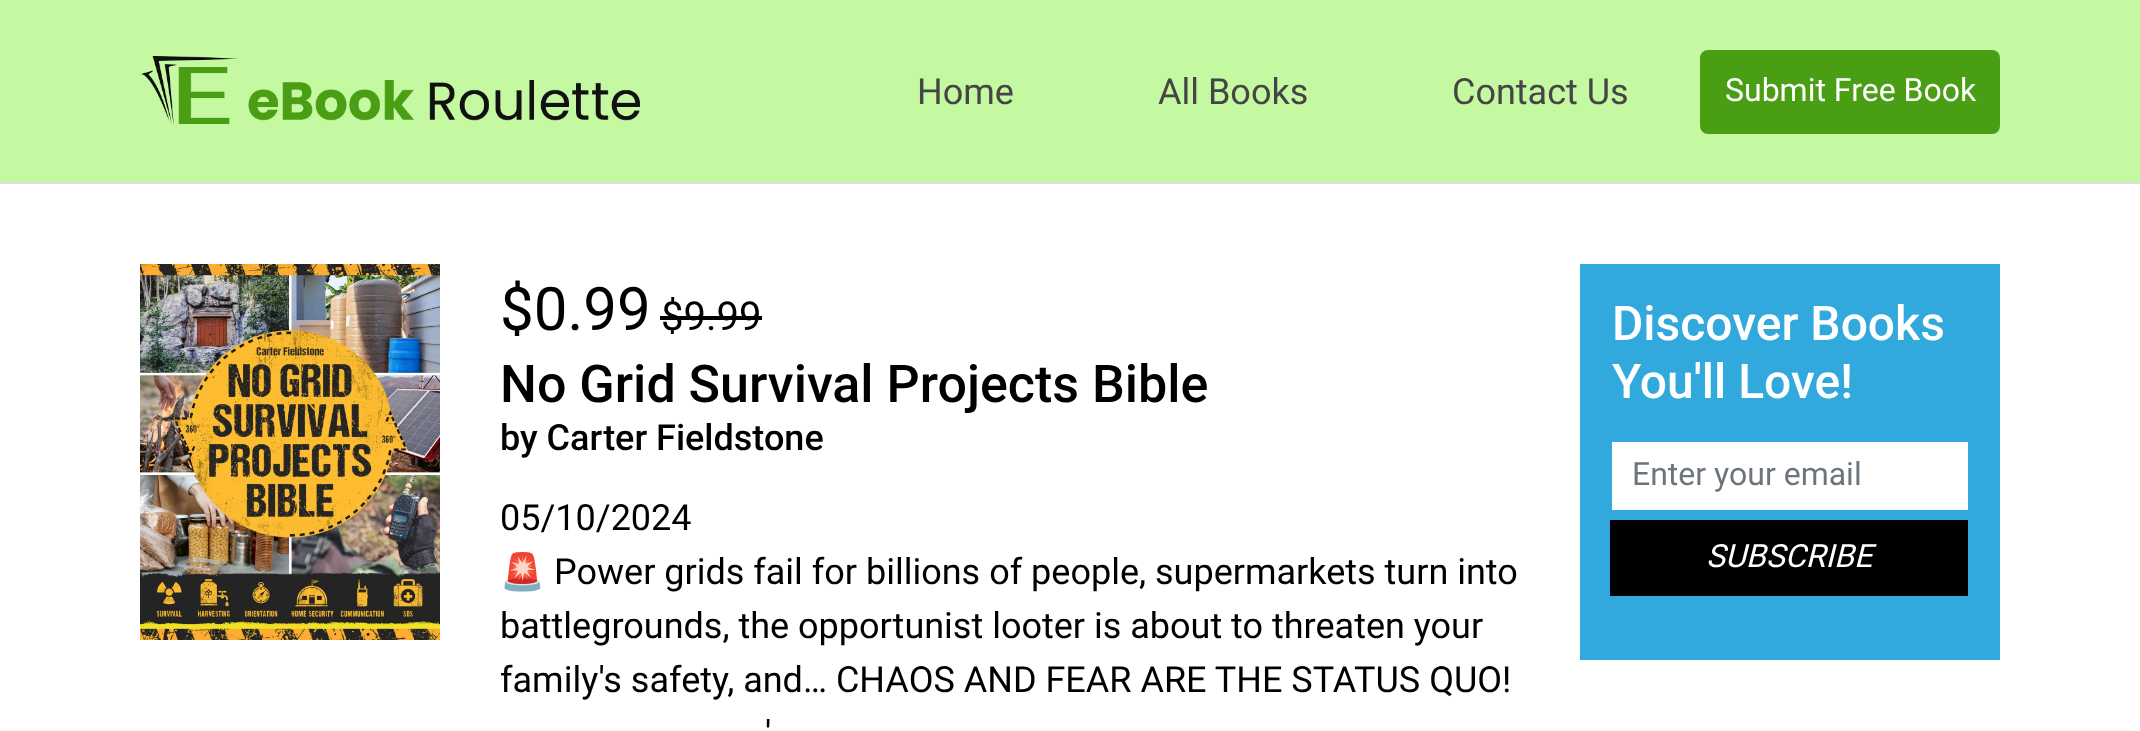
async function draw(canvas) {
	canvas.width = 2140;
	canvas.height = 731;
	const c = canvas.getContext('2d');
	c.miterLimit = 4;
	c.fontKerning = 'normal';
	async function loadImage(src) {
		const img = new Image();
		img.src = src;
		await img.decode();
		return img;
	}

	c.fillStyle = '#fff';
	c.fillRect(0, 0, 2140, 731);
	c.fillStyle = '#c4f8a1';
	c.fillRect(0, 0, 2140, 182);
	c.fillStyle = '#ddd';
	c.fillRect(0, 182, 2140, 2);
	c.drawImage(await loadImage('img1.png'), 140, 56, 500, 69);
	c.font = '36px Roboto';
	c.fillStyle = '#454545';
	for (const [text, x, y] of [
		['Home', 917, 104],
		['All Books', 1158, 104],
		['Contact Us', 1452, 104],
	]) {
		c.fillText(text, x, y);
	}
	c.fillStyle = '#4a9e13';
	c.beginPath();
	c.roundRect(1700, 50, 300, 84, 8);
	c.fill();
	c.font = '32px Roboto';
	c.fillStyle = '#fff';
	c.fillText('Submit Free Book', 1725, 101);
	c.drawImage(await loadImage('img2.png'), 140, 264, 300, 376);
	c.font = '60px Roboto';
	c.fillStyle = '#000';
	c.fillText('$0.99', 500, 330);
	c.font = '40px Roboto';
	c.fillText('$9.99', 661, 330);
	c.fillRect(660, 316, 102, 4);
	c.font = '500 52px Roboto';
	c.fillText('No Grid Survival Projects Bible', 500, 402);
	c.font = '500 36px Roboto';
	c.fillText('by Carter Fieldstone', 500, 450);
	c.font = '36px Roboto';
	c.fillText('05/10/2024', 500, 530);
	c.font = '36px Noto Color Emoji';
	c.fillText('🚨', 500, 584);
	c.font = '36px Roboto';
	for (const [text, x, y] of [
		['Power grids fail for billions of people, supermarkets turn into', 554, 584],
		['battlegrounds, the opportunist looter is about to threaten your', 500, 638],
		['family\'s safety, and… CHAOS AND FEAR ARE THE STATUS QUO!', 500, 692],
		['\'', 765, 746],
	]) {
		c.fillText(text, x, y);
	}
	c.fillStyle = '#31a9dc';
	c.fillRect(1580, 264, 420, 396);
	c.font = '500 48px Roboto';
	c.fillStyle = '#fff';
	c.fillText('Discover Books', 1612, 340);
	c.fillText('You\'ll Love!', 1612, 398);
	c.fillRect(1612, 442, 356, 68);
	c.font = '32px Roboto';
	c.fillStyle = '#6c757d';
	c.fillText('Enter your email', 1632, 485);
	c.fillStyle = '#000';
	c.fillRect(1610, 520, 358, 76);
	c.font = 'italic 32px Roboto';
	c.fillStyle = '#fff';
	c.fillText('SUBSCRIBE', 1706, 567);
}

draw(document.querySelector('canvas'));
